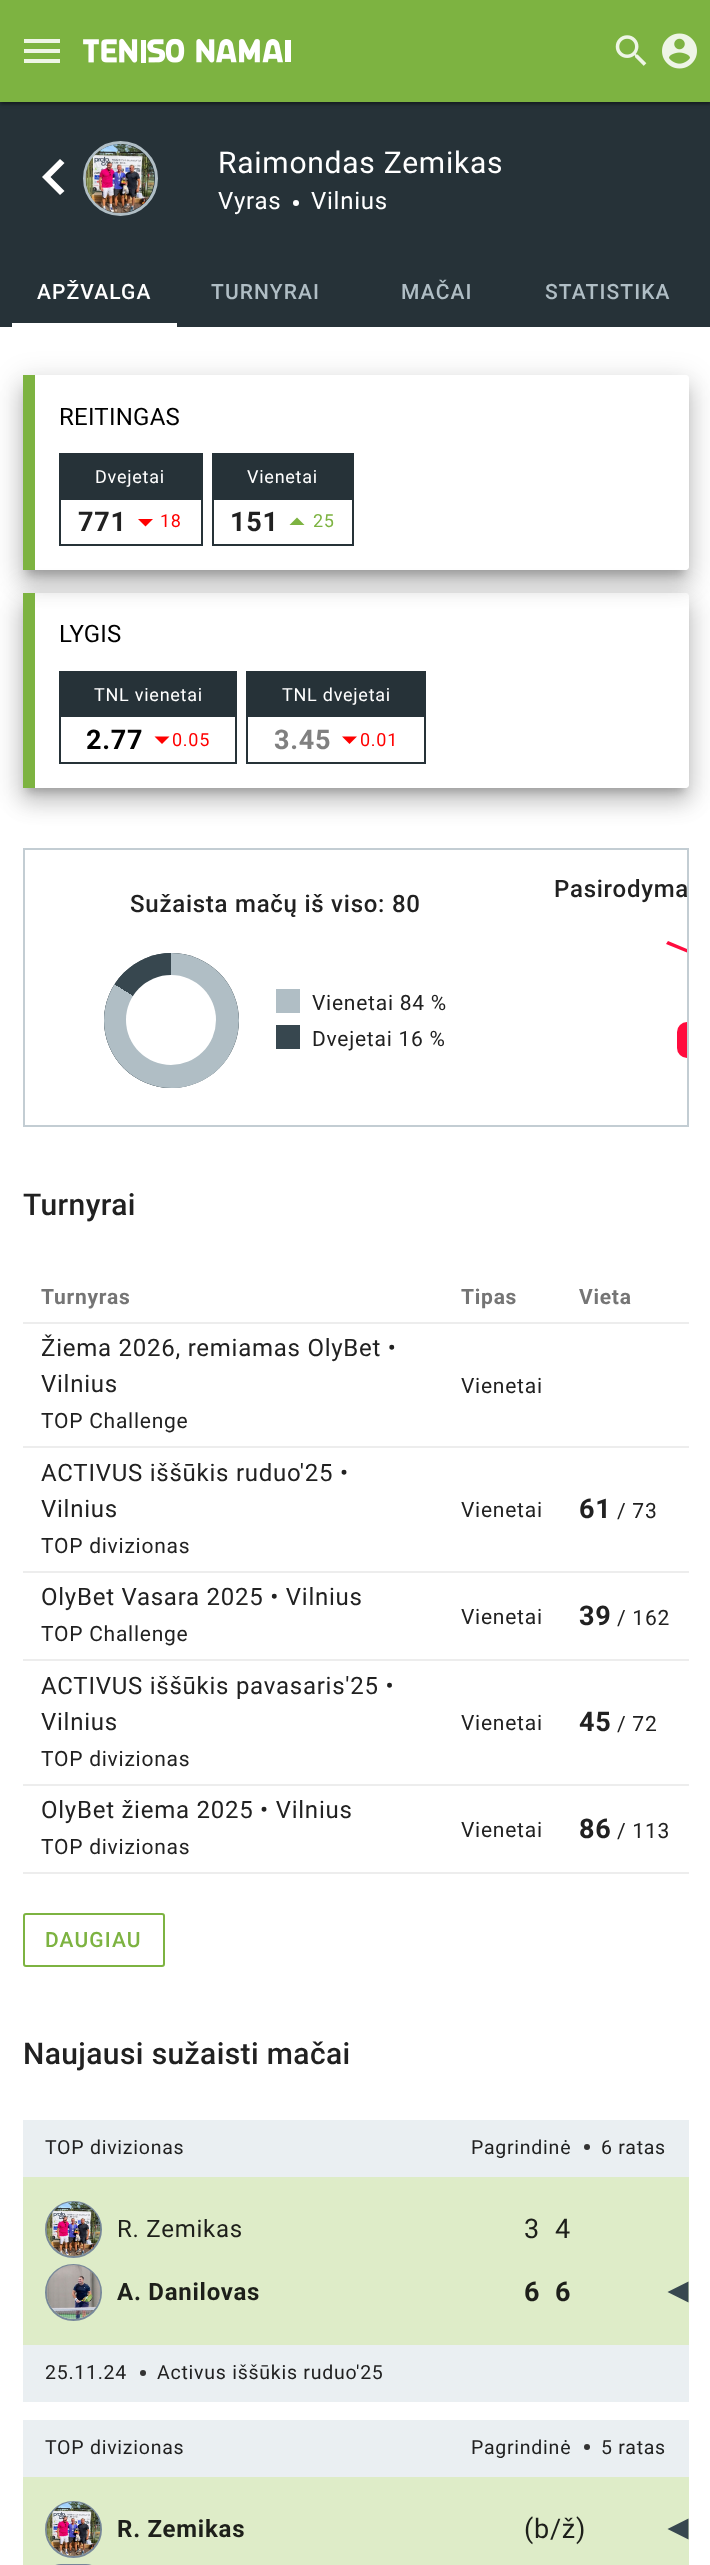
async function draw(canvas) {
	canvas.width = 710;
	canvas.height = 2565;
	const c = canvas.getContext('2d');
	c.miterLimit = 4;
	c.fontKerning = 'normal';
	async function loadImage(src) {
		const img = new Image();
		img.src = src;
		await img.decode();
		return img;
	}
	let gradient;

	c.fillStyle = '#fff';
	c.fillRect(0, 0, 710, 2565);
	c.fillStyle = '#263238';
	c.fillRect(0, 102, 710, 225);
	c.fillStyle = '#0000001f';
	c.filter = 'blur(1px)';
	c.beginPath();
	c.rect(2, 5, 708, 99);
	c.fill();
	c.filter = 'none';
	c.fillStyle = '#00000024';
	c.filter = 'blur(1px)';
	c.beginPath();
	c.rect(0, 2, 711, 102);
	c.fill();
	c.filter = 'none';
	c.fillStyle = '#00000033';
	c.filter = 'blur(2px)';
	c.beginPath();
	c.rect(0, 2, 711, 102);
	c.fill();
	c.filter = 'none';
	c.fillStyle = '#7db341';
	c.fillRect(0, 0, 710, 102);
	c.fillStyle = '#eef5e6';
	c.beginPath();
	c.moveTo(24, 39);
	c.lineTo(60, 39);
	c.lineTo(60, 43);
	c.lineTo(24, 43);
	c.closePath();
	c.moveTo(24, 53);
	c.lineTo(24, 49);
	c.lineTo(60, 49);
	c.lineTo(60, 53);
	c.closePath();
	c.moveTo(24, 63);
	c.lineTo(24, 59);
	c.lineTo(60, 59);
	c.lineTo(60, 63);
	c.closePath();
	c.fill();
	c.drawImage(await loadImage('img1.png'), 83, 38, 208, 25);
	c.drawImage(await loadImage('img2.png'), 615, 35, 32, 31);
	c.drawImage(await loadImage('img3.png'), 662, 33, 35, 36);
	c.fillStyle = '#fff';
	c.beginPath();
	c.moveTo(64.5, 163);
	c.lineTo(50.5, 177);
	c.lineTo(64.5, 191);
	c.lineTo(60, 195);
	c.lineTo(42, 177);
	c.lineTo(60, 159);
	c.closePath();
	c.fill();
	c.beginPath();
	c.arc(120.5, 178.5, 36, 0, 2 * Math.PI);
	c.strokeStyle = '#b0bec5';
	c.lineWidth = 3;
	c.stroke();
	c.drawImage(await loadImage('img4.png'), 85, 144, 70, 69);
	c.letterSpacing = '0.75px';
	c.font = '30px Roboto';
	c.fillText('Raimondas Zemikas', 218, 173);
	c.font = '24px Roboto';
	c.fillText('Vyras', 218, 209);
	c.beginPath();
	c.arc(296, 203, 3, 0, 2 * Math.PI);
	c.fill();
	c.fillText('Vilnius', 311, 209);
	c.letterSpacing = '1.1px';
	c.font = '500 21px Roboto';
	c.fillText('APŽVALGA', 37, 299);
	c.fillStyle = '#b0bec5';
	for (const [text, x, y] of [
		['TURNYRAI', 211, 299],
		['MAČAI', 401, 299],
		['STATISTIKA', 545, 299],
	]) {
		c.fillText(text, x, y);
	}
	c.fillStyle = '#fff';
	c.fillRect(12, 323, 165, 4);
	c.save();
	c.beginPath();
	c.moveTo(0, 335);
	c.lineTo(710, 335);
	c.lineTo(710, 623);
	c.lineTo(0, 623);
	c.closePath();
	c.moveTo(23, 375);
	c.lineTo(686, 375);
	c.bezierCurveTo(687.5, 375, 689, 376.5, 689, 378);
	c.lineTo(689, 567);
	c.bezierCurveTo(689, 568.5, 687.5, 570, 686, 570);
	c.lineTo(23, 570);
	c.closePath();
	c.clip('evenodd');
	c.fillStyle = '#0000001f';
	c.filter = 'blur(13.5px)';
	c.beginPath();
	c.roundRect(18, 377, 675, 204, 8);
	c.fill();
	c.filter = 'none';
	c.restore();
	c.save();
	c.beginPath();
	c.moveTo(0, 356);
	c.lineTo(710, 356);
	c.lineTo(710, 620);
	c.lineTo(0, 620);
	c.closePath();
	c.moveTo(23, 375);
	c.lineTo(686, 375);
	c.bezierCurveTo(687.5, 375, 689, 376.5, 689, 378);
	c.lineTo(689, 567);
	c.bezierCurveTo(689, 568.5, 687.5, 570, 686, 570);
	c.lineTo(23, 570);
	c.closePath();
	c.clip('evenodd');
	c.fillStyle = '#00000024';
	c.filter = 'blur(10.5px)';
	c.beginPath();
	c.roundRect(21, 389, 669, 198, 5);
	c.fill();
	c.filter = 'none';
	c.restore();
	c.save();
	c.beginPath();
	c.moveTo(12, 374);
	c.lineTo(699, 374);
	c.lineTo(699, 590);
	c.lineTo(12, 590);
	c.closePath();
	c.moveTo(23, 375);
	c.lineTo(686, 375);
	c.bezierCurveTo(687.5, 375, 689, 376.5, 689, 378);
	c.lineTo(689, 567);
	c.bezierCurveTo(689, 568.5, 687.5, 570, 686, 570);
	c.lineTo(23, 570);
	c.closePath();
	c.clip('evenodd');
	c.fillStyle = '#00000033';
	c.filter = 'blur(4.5px)';
	c.beginPath();
	c.rect(27, 389, 657, 186);
	c.fill();
	c.filter = 'none';
	c.restore();
	c.fillStyle = '#7db341';
	c.fillRect(23, 375, 12, 195);
	c.letterSpacing = '0.25px';
	c.font = '24px Roboto';
	c.fillStyle = '#000';
	c.fillText('REITINGAS', 59, 425);
	c.strokeStyle = '#263238';
	c.lineWidth = 2;
	c.strokeRect(60, 454, 142, 91);
	c.fillStyle = '#263238';
	c.fillRect(61, 455, 140, 45);
	c.letterSpacing = '0.75px';
	c.font = '18px Roboto';
	c.fillStyle = '#fff';
	c.fillText('Dvejetai', 95, 483);
	c.font = 'bold 27px Roboto';
	c.fillStyle = '#212121';
	c.fillText('771', 78, 531);
	c.fillStyle = '#f00';
	c.beginPath();
	c.moveTo(138, 519);
	c.lineTo(153, 519);
	c.lineTo(145.5, 526.5);
	c.closePath();
	c.fill();
	c.font = '18px Roboto';
	c.fillText('18', 160, 527);
	c.strokeRect(213, 454, 140, 91);
	c.fillStyle = '#263238';
	c.fillRect(214, 455, 138, 45);
	c.fillStyle = '#fff';
	c.fillText('Vienetai', 247, 483);
	c.font = 'bold 27px Roboto';
	c.fillStyle = '#212121';
	c.fillText('151', 230, 531);
	c.fillStyle = '#7db341';
	c.beginPath();
	c.moveTo(289.5, 525);
	c.lineTo(297, 517.5);
	c.lineTo(304.5, 525);
	c.closePath();
	c.fill();
	c.font = '18px Roboto';
	c.fillText('25', 313, 527);
	c.save();
	c.beginPath();
	c.moveTo(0, 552);
	c.lineTo(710, 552);
	c.lineTo(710, 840);
	c.lineTo(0, 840);
	c.closePath();
	c.moveTo(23, 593);
	c.lineTo(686, 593);
	c.bezierCurveTo(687.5, 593, 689, 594.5, 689, 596);
	c.lineTo(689, 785);
	c.bezierCurveTo(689, 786.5, 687.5, 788, 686, 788);
	c.lineTo(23, 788);
	c.closePath();
	c.clip('evenodd');
	c.fillStyle = '#0000001f';
	c.filter = 'blur(13.5px)';
	c.beginPath();
	c.roundRect(18, 594, 675, 204, 8);
	c.fill();
	c.filter = 'none';
	c.restore();
	c.save();
	c.beginPath();
	c.moveTo(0, 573);
	c.lineTo(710, 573);
	c.lineTo(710, 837);
	c.lineTo(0, 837);
	c.closePath();
	c.moveTo(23, 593);
	c.lineTo(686, 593);
	c.bezierCurveTo(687.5, 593, 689, 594.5, 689, 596);
	c.lineTo(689, 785);
	c.bezierCurveTo(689, 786.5, 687.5, 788, 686, 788);
	c.lineTo(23, 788);
	c.closePath();
	c.clip('evenodd');
	c.fillStyle = '#00000024';
	c.filter = 'blur(10.5px)';
	c.beginPath();
	c.roundRect(21, 606, 669, 198, 5);
	c.fill();
	c.filter = 'none';
	c.restore();
	c.save();
	c.beginPath();
	c.moveTo(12, 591);
	c.lineTo(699, 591);
	c.lineTo(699, 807);
	c.lineTo(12, 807);
	c.closePath();
	c.moveTo(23, 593);
	c.lineTo(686, 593);
	c.bezierCurveTo(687.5, 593, 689, 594.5, 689, 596);
	c.lineTo(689, 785);
	c.bezierCurveTo(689, 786.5, 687.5, 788, 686, 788);
	c.lineTo(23, 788);
	c.closePath();
	c.clip('evenodd');
	c.fillStyle = '#00000033';
	c.filter = 'blur(4.5px)';
	c.beginPath();
	c.rect(27, 606, 657, 186);
	c.fill();
	c.filter = 'none';
	c.restore();
	c.fillRect(23, 593, 12, 195);
	c.letterSpacing = '0.25px';
	c.font = '24px Roboto';
	c.fillStyle = '#000';
	c.fillText('LYGIS', 59, 642);
	c.strokeRect(60, 672, 176, 91);
	c.fillStyle = '#263238';
	c.fillRect(61, 673, 174, 44);
	c.letterSpacing = '0.75px';
	c.font = '18px Roboto';
	c.fillStyle = '#fff';
	c.fillText('TNL vienetai', 94, 701);
	c.font = 'bold 27px Roboto';
	c.fillStyle = '#000';
	c.fillText('2.77', 86, 749);
	c.fillStyle = '#f00';
	c.beginPath();
	c.moveTo(154.5, 736.5);
	c.lineTo(169.5, 736.5);
	c.lineTo(162, 744);
	c.closePath();
	c.fill();
	c.font = '18px Roboto';
	c.fillText('0.05', 172, 746);
	c.strokeRect(247, 672, 178, 91);
	c.fillStyle = '#263238';
	c.fillRect(248, 673, 176, 44);
	c.fillStyle = '#fff';
	c.fillText('TNL dvejetai', 282, 701);
	c.font = 'bold 27px Roboto';
	c.fillStyle = '#808080';
	c.fillText('3.45', 274, 749);
	c.fillStyle = '#f00';
	c.beginPath();
	c.moveTo(342, 736.5);
	c.lineTo(357, 736.5);
	c.lineTo(349.5, 744);
	c.closePath();
	c.fill();
	c.font = '18px Roboto';
	c.fillText('0.01', 360, 746);
	c.strokeStyle = '#c3cdd3';
	c.strokeRect(24, 849, 664, 277);
	c.save();
	c.beginPath();
	c.rect(24, 849, 663, 276);
	c.clip();
	c.font = '500 24px Roboto';
	c.fillStyle = '#212121';
	c.fillText('Pasirodyma', 554, 897);
	c.fillStyle = '#ff0c3e';
	c.beginPath();
	c.moveTo(668, 941);
	c.lineTo(709, 958);
	c.lineTo(708, 961);
	c.lineTo(666, 944);
	c.closePath();
	c.fill();
	c.restore();
	c.fillStyle = '#ff0c3e';
	c.beginPath();
	c.roundRect(677, 1022, 10, 36, [18, 0, 0, 18]);
	c.fill();
	c.font = '500 24px Roboto';
	c.fillStyle = '#212121';
	c.fillText('Sužaista mačų iš viso: 80', 130, 912);
	c.fillStyle = '#37474f';
	c.beginPath();
	c.arc(171.5, 1020.5, 67.5, 0, 2 * Math.PI);
	c.fill();
	c.save();
	c.beginPath();
	c.roundRect(104, 953, 135, 135, 67.5);
	c.clip();
	c.fillStyle = '#b0bec5';
	c.beginPath();
	c.roundRect(171, 953, 68, 135, [0, 67.5, 67.5, 0]);
	c.fill();
	c.fillStyle = '#37474f';
	c.fillRect(104, 953, 67, 135);
	c.restore();
	gradient = c.createLinearGradient(121, 1099, 221, 941);
	gradient.addColorStop(0.5, '#b0bec5');
	gradient.addColorStop(0.5, '#b0bec500');
	gradient.addColorStop(1, '#00000000');
	c.fillStyle = gradient;
	c.beginPath();
	c.arc(171.5, 1020.5, 67.5, 0, 2 * Math.PI);
	c.fill();
	c.fillStyle = '#fff';
	c.beginPath();
	c.arc(171, 1020, 45, 0, 2 * Math.PI);
	c.fill();
	c.fillStyle = '#b0bec5';
	c.fillRect(276, 989, 24, 24);
	c.font = '21px Roboto';
	c.fillStyle = '#212121';
	c.fillText('Vienetai 84 %', 312, 1010);
	c.fillStyle = '#37474f';
	c.fillRect(276, 1025, 24, 24);
	c.fillStyle = '#212121';
	c.fillText('Dvejetai 16 %', 312, 1046);
	c.letterSpacing = '0.4px';
	c.font = '500 30px Roboto';
	c.fillText('Turnyrai', 23, 1215);
	c.letterSpacing = '0.75px';
	c.font = 'bold 21px Roboto';
	c.fillStyle = '#757575';
	c.fillText('Turnyras', 41, 1304);
	c.fillText('Tipas', 461, 1304);
	c.fillStyle = '#ededed';
	c.fillRect(23, 1322, 666, 2);
	c.fillStyle = '#757575';
	c.fillText('Vieta', 579, 1304);
	c.font = '24px Roboto';
	c.fillStyle = '#212121';
	c.fillText('Žiema 2026, remiamas OlyBet •', 41, 1356);
	c.fillText('Vilnius', 41, 1392);
	c.font = '21px Roboto';
	c.fillText('TOP Challenge', 41, 1428);
	c.fillText('Vienetai', 461, 1393);
	c.fillStyle = '#ededed';
	c.fillRect(23, 1446, 666, 2);
	c.font = '24px Roboto';
	c.fillStyle = '#212121';
	c.fillText('ACTIVUS iššūkis ruduo\'25 •', 41, 1481);
	c.fillText('Vilnius', 41, 1517);
	c.font = '21px Roboto';
	c.fillText('TOP divizionas', 41, 1553);
	c.fillText('Vienetai', 461, 1517);
	c.fillStyle = '#ededed';
	c.fillRect(23, 1571, 666, 2);
	c.font = 'bold 27px Roboto';
	c.fillStyle = '#212121';
	c.fillText('61', 579, 1518);
	c.font = '21px Roboto';
	c.fillText('/ 73', 617, 1518);
	c.font = '24px Roboto';
	c.fillText('OlyBet Vasara 2025 • Vilnius', 41, 1605);
	c.font = '21px Roboto';
	c.fillText('TOP Challenge', 41, 1641);
	c.fillText('Vienetai', 461, 1624);
	c.fillStyle = '#ededed';
	c.fillRect(23, 1659, 666, 2);
	c.font = 'bold 27px Roboto';
	c.fillStyle = '#212121';
	c.fillText('39', 579, 1625);
	c.font = '21px Roboto';
	c.fillText('/ 162', 617, 1625);
	c.font = '24px Roboto';
	c.fillText('ACTIVUS iššūkis pavasaris\'25 •', 41, 1694);
	c.fillText('Vilnius', 41, 1730);
	c.font = '21px Roboto';
	c.fillText('TOP divizionas', 41, 1766);
	c.fillText('Vienetai', 461, 1730);
	c.fillStyle = '#ededed';
	c.fillRect(23, 1784, 666, 2);
	c.font = 'bold 27px Roboto';
	c.fillStyle = '#212121';
	c.fillText('45', 579, 1731);
	c.font = '21px Roboto';
	c.fillText('/ 72', 617, 1731);
	c.font = '24px Roboto';
	c.fillText('OlyBet žiema 2025 • Vilnius', 41, 1818);
	c.font = '21px Roboto';
	c.fillText('TOP divizionas', 41, 1854);
	c.fillText('Vienetai', 461, 1837);
	c.fillStyle = '#ededed';
	c.fillRect(23, 1872, 666, 2);
	c.font = 'bold 27px Roboto';
	c.fillStyle = '#212121';
	c.fillText('86', 579, 1838);
	c.font = '21px Roboto';
	c.fillText('/ 113', 617, 1838);
	c.beginPath();
	c.roundRect(24, 1914, 140, 52, 2);
	c.strokeStyle = '#7db341';
	c.stroke();
	c.letterSpacing = '1.1px';
	c.font = '500 21px Roboto';
	c.fillStyle = '#7db341';
	c.fillText('DAUGIAU', 45, 1947);
	c.letterSpacing = '0.4px';
	c.font = '500 30px Roboto';
	c.fillStyle = '#212121';
	c.fillText('Naujausi sužaisti mačai', 23, 2064);
	c.fillStyle = '#deecc8';
	c.fillRect(23, 2177, 666, 168);
	c.fillStyle = '#eaeff2';
	c.fillRect(23, 2120, 666, 57);
	c.letterSpacing = '0.75px';
	c.font = '19.5px Roboto';
	c.fillStyle = '#212121';
	c.fillText('TOP divizionas', 45, 2154);
	c.fillText('Pagrindinė', 471, 2154);
	c.fillStyle = '#333';
	c.beginPath();
	c.arc(587, 2147, 3, 0, 2 * Math.PI);
	c.fill();
	c.fillStyle = '#212121';
	c.fillText('6 ratas', 601, 2154);
	c.beginPath();
	c.arc(73.5, 2229.5, 27.5, 0, 2 * Math.PI);
	c.strokeStyle = '#789';
	c.stroke();
	c.drawImage(await loadImage('img5.png'), 46, 2202, 55, 54);
	c.font = '24px Roboto';
	c.fillStyle = '#1d1f1a';
	c.fillText('R. Zemikas', 117, 2237);
	c.font = '27px Roboto';
	c.fillText('3', 524, 2238);
	c.fillText('4', 555, 2238);
	c.beginPath();
	c.arc(73.5, 2292.5, 27.5, 0, 2 * Math.PI);
	c.stroke();
	c.drawImage(await loadImage('img6.png'), 46, 2265, 55, 54);
	c.font = 'bold 24px Roboto';
	c.fillText('A. Danilovas', 117, 2300);
	c.font = 'bold 27px Roboto';
	c.fillText('6', 524, 2301);
	c.fillText('6', 555, 2301);
	c.fillStyle = '#37474f';
	c.beginPath();
	c.moveTo(688.5, 2281.5);
	c.lineTo(688.5, 2302.5);
	c.lineTo(667.5, 2292);
	c.closePath();
	c.fill();
	c.fillStyle = '#eaeff2';
	c.fillRect(23, 2345, 666, 57);
	c.font = '19.5px Roboto';
	c.fillStyle = '#212121';
	c.fillText('25.11.24', 45, 2379);
	c.fillStyle = '#333';
	c.beginPath();
	c.arc(143, 2373, 3, 0, 2 * Math.PI);
	c.fill();
	c.fillStyle = '#212121';
	c.fillText('Activus iššūkis ruduo\'25', 157, 2379);
	c.fillStyle = '#deecc8';
	c.fillRect(23, 2477, 666, 88);
	c.fillStyle = '#eaeff2';
	c.fillRect(23, 2420, 666, 57);
	c.fillStyle = '#212121';
	c.fillText('TOP divizionas', 45, 2454);
	c.fillText('Pagrindinė', 471, 2454);
	c.fillStyle = '#333';
	c.beginPath();
	c.arc(587, 2447, 3, 0, 2 * Math.PI);
	c.fill();
	c.fillStyle = '#212121';
	c.fillText('5 ratas', 601, 2454);
	c.beginPath();
	c.arc(73.5, 2529.5, 27.5, 0, 2 * Math.PI);
	c.stroke();
	c.drawImage(await loadImage('img7.png'), 46, 2502, 55, 54);
	c.font = 'bold 24px Roboto';
	c.fillStyle = '#1d1f1a';
	c.fillText('R. Zemikas', 117, 2537);
	c.font = '27px Roboto';
	c.fillText('(b/ž)', 524, 2538);
	c.fillStyle = '#37474f';
	c.beginPath();
	c.moveTo(688.5, 2518.5);
	c.lineTo(688.5, 2539.5);
	c.lineTo(667.5, 2529);
	c.closePath();
	c.fill();
	c.beginPath();
	c.roundRect(46, 2565, 55, 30, 27.5);
	c.stroke();
}

draw(document.querySelector('canvas'));
